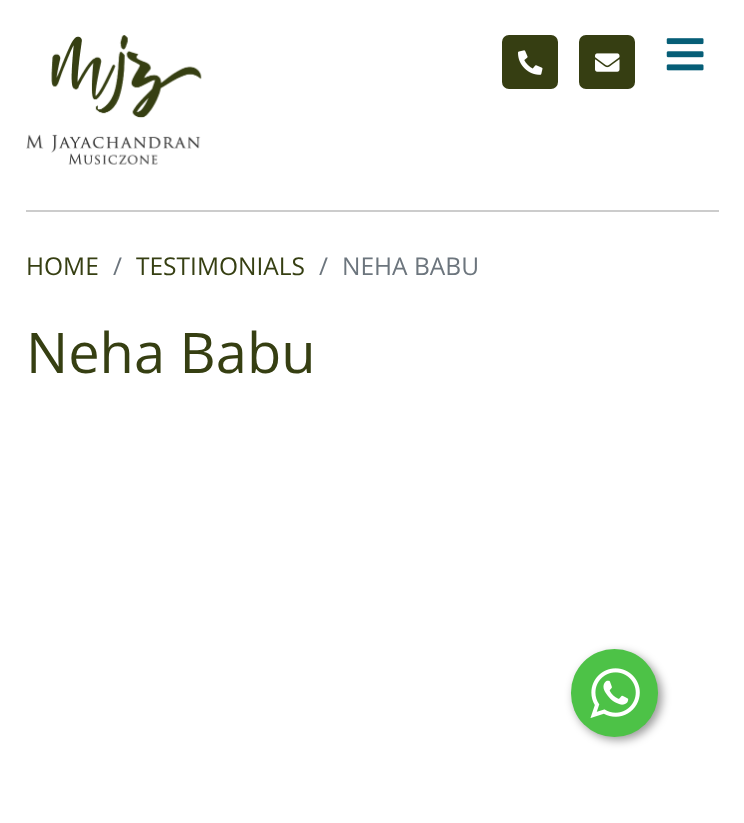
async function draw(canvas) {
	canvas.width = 744;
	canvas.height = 823;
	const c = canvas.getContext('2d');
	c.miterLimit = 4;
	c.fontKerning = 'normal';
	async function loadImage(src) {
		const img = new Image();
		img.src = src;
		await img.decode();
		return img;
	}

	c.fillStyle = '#fff';
	c.fillRect(0, 0, 744, 823);
	c.drawImage(await loadImage('img1.png'), 26, 35, 176, 130);
	c.fillStyle = '#363e12';
	c.beginPath();
	c.roundRect(503, 36, 54, 52, 6);
	c.fill();
	c.strokeStyle = '#363e12';
	c.lineWidth = 2;
	c.stroke();
	c.drawImage(await loadImage('img2.png'), 518, 50, 25, 25);
	c.beginPath();
	c.roundRect(580, 36, 54, 52, 6);
	c.fill();
	c.stroke();
	c.drawImage(await loadImage('img3.png'), 595, 53, 25, 19);
	c.drawImage(await loadImage('img4.png'), 666, 38, 38, 33);
	c.fillStyle = '#ccc';
	c.fillRect(26, 210, 693, 2);
	c.font = '24.5px Open Sans';
	c.fillStyle = '#363f12';
	c.fillText('HOME', 26, 275);
	c.fillStyle = '#6c757d';
	c.fillText('/', 113, 275);
	c.fillStyle = '#363f12';
	c.fillText('TESTIMONIALS', 136, 275);
	c.fillStyle = '#6c757d';
	c.fillText('/', 319, 275);
	c.fillText('NEHA BABU', 342, 275);
	c.font = '56px Open Sans';
	c.fillStyle = '#363f12';
	c.fillText('Neha Babu', 26, 373);
	c.fillStyle = '#00000066';
	c.filter = 'blur(5px)';
	c.beginPath();
	c.roundRect(574, 653, 88, 87, 43.5);
	c.fill();
	c.filter = 'none';
	c.fillStyle = '#4dc247';
	c.beginPath();
	c.roundRect(571, 649, 87, 88, 43.5);
	c.fill();
	c.drawImage(await loadImage('img5.png'), 590, 668, 50, 50);
}

draw(document.querySelector('canvas'));
